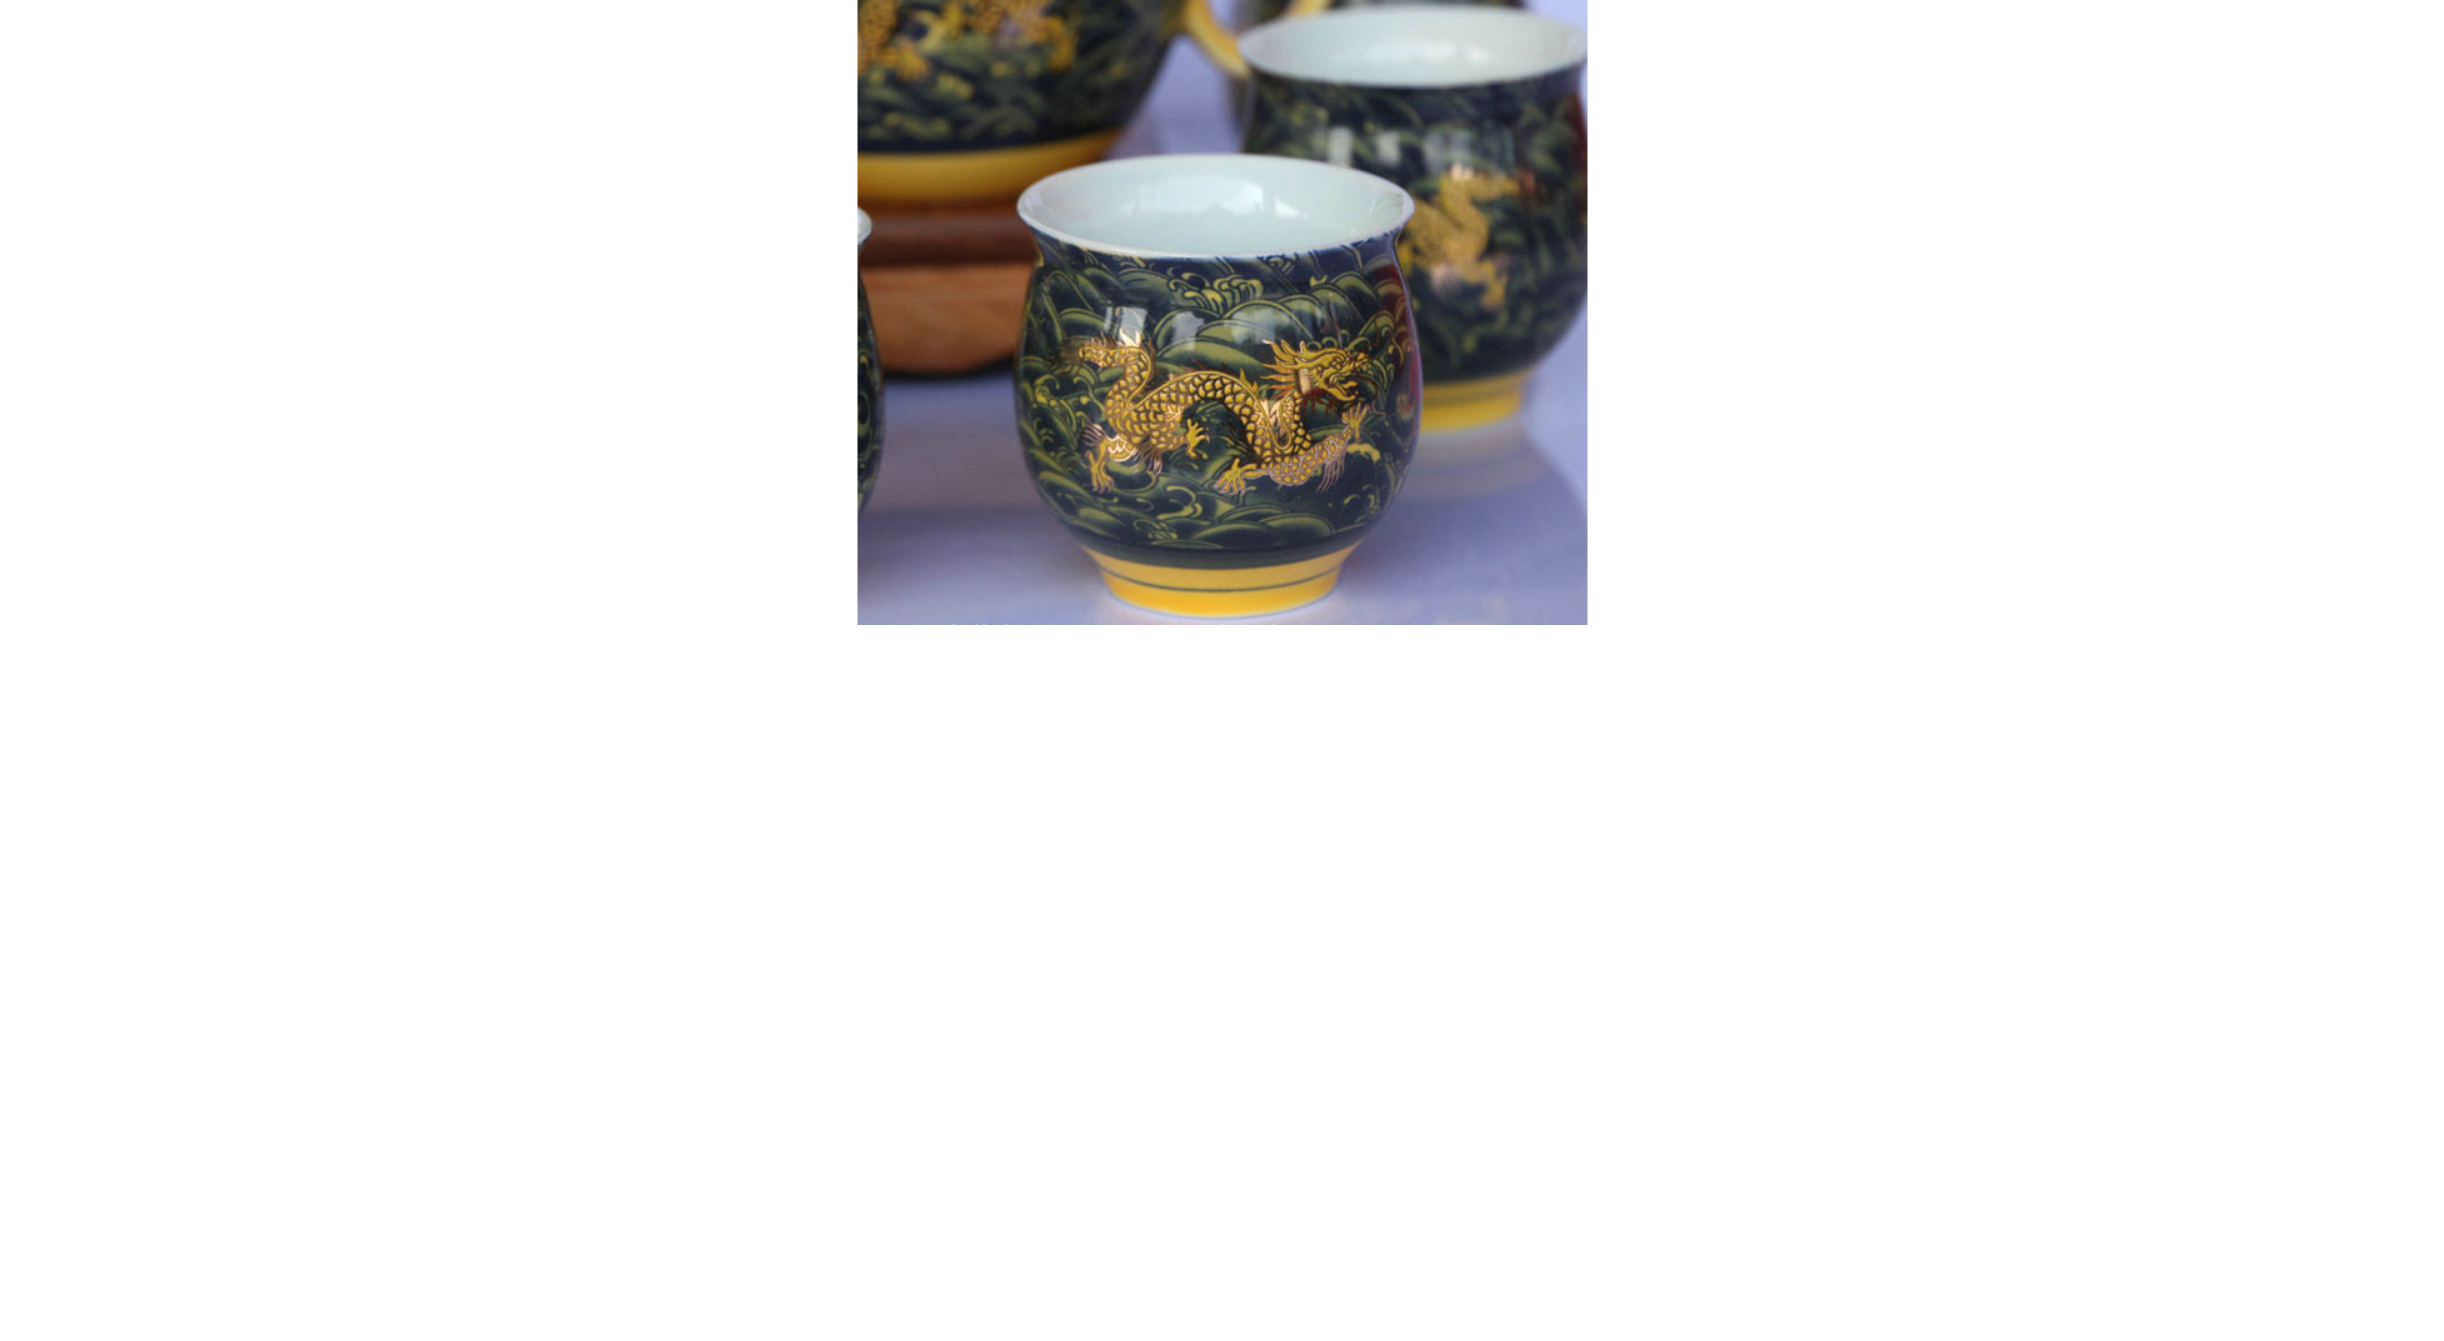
async function draw(canvas) {
	canvas.width = 2444;
	canvas.height = 1341;
	const c = canvas.getContext('2d');
	c.miterLimit = 4;
	c.fontKerning = 'normal';
	async function loadImage(src) {
		const img = new Image();
		img.src = src;
		await img.decode();
		return img;
	}

	c.fillStyle = '#fff';
	c.fillRect(0, 0, 2444, 1341);
	c.drawImage(await loadImage('img1.png'), 857, 0, 731, 625);
}

draw(document.querySelector('canvas'));
